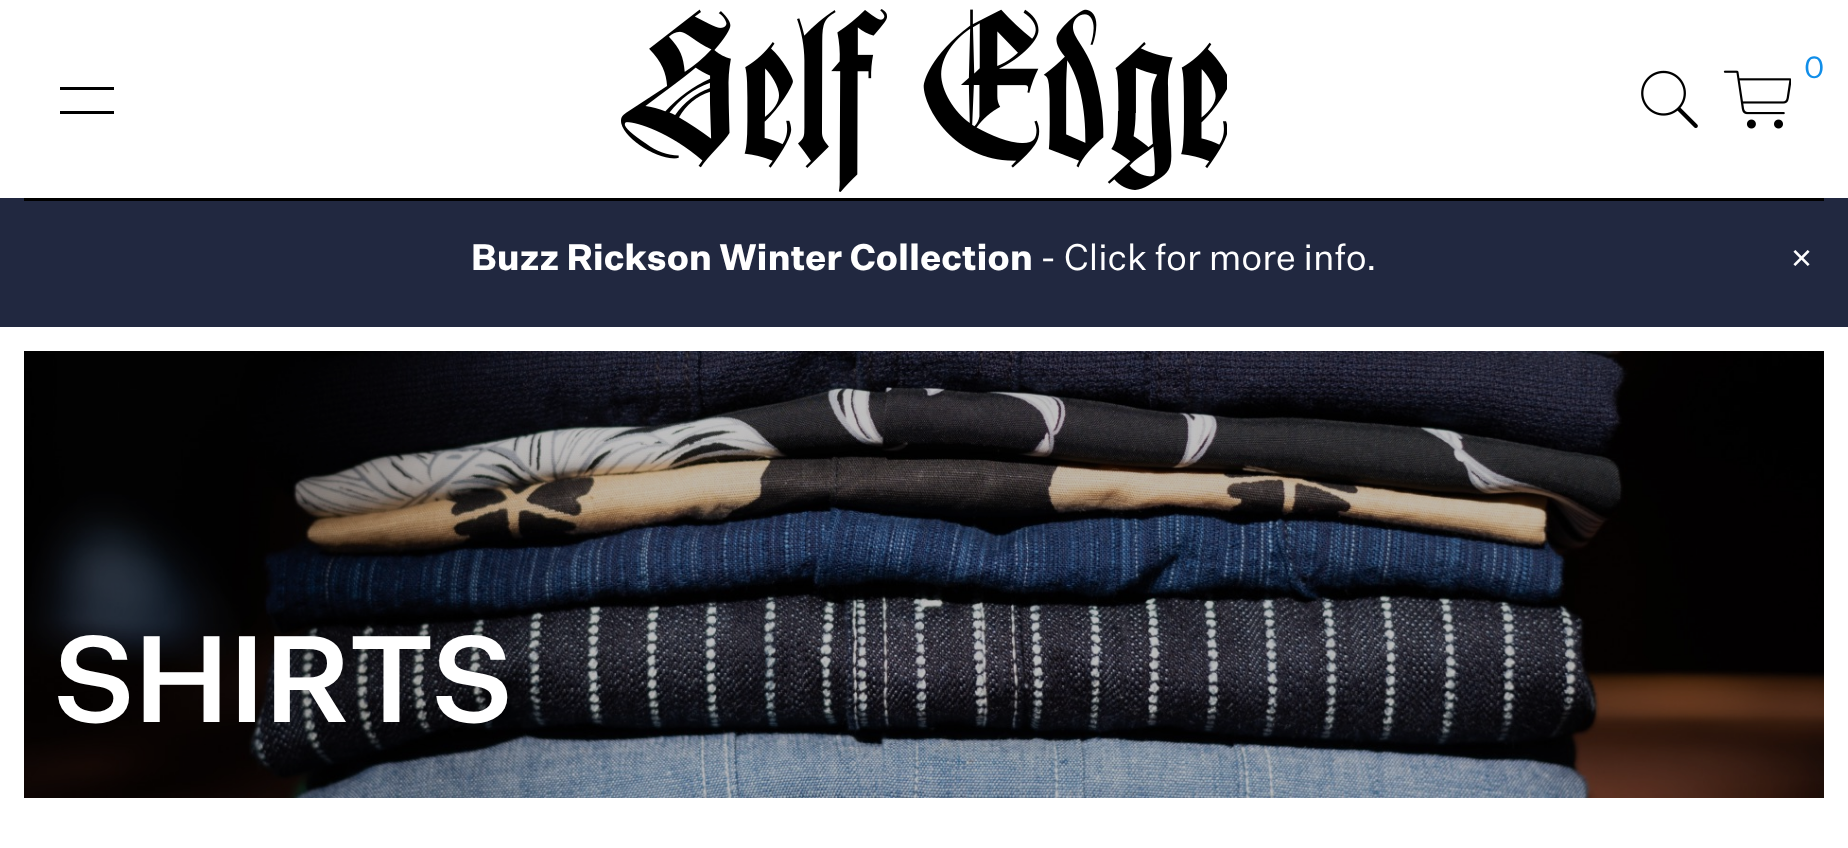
async function draw(canvas) {
	canvas.width = 1848;
	canvas.height = 848;
	const c = canvas.getContext('2d');
	c.miterLimit = 4;
	c.fontKerning = 'normal';
	async function loadImage(src) {
		const img = new Image();
		img.src = src;
		await img.decode();
		return img;
	}

	c.fillStyle = '#fff';
	c.fillRect(0, 0, 1848, 848);
	c.drawImage(await loadImage('img1.png'), 621, 9, 606, 183);
	c.font = '30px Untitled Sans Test';
	c.fillStyle = '#118ee9';
	c.fillText('0', 1804, 78);
	c.drawImage(await loadImage('img2.png'), 1723, 70, 68, 59);
	c.drawImage(await loadImage('img3.png'), 1641, 70, 57, 58);
	c.fillStyle = '#000';
	c.beginPath();
	c.moveTo(60, 87);
	c.lineTo(114, 87);
	c.lineTo(114, 90);
	c.lineTo(60, 90);
	c.closePath();
	c.moveTo(60, 111);
	c.lineTo(114, 111);
	c.lineTo(114, 114);
	c.lineTo(60, 114);
	c.closePath();
	c.fill();
	c.fillStyle = '#212840';
	c.fillRect(0, 198, 1848, 129);
	c.fillStyle = '#000';
	c.fillRect(24, 198, 1800, 3);
	c.font = 'bold 36px Untitled Sans Test';
	c.fillStyle = '#fff';
	c.fillText('Buzz Rickson Winter Collection', 471, 270);
	c.font = '36px Untitled Sans Test';
	c.fillText('- Click for more info.', 1040, 270);
	c.font = '36px Liberation Sans';
	c.fillText('×', 1791, 270);
	c.drawImage(await loadImage('img4.png'), 24, 351, 1800, 447);
	c.font = '500 120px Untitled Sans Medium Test';
	c.fillText('SHIRTS', 54, 722);
}

draw(document.querySelector('canvas'));
